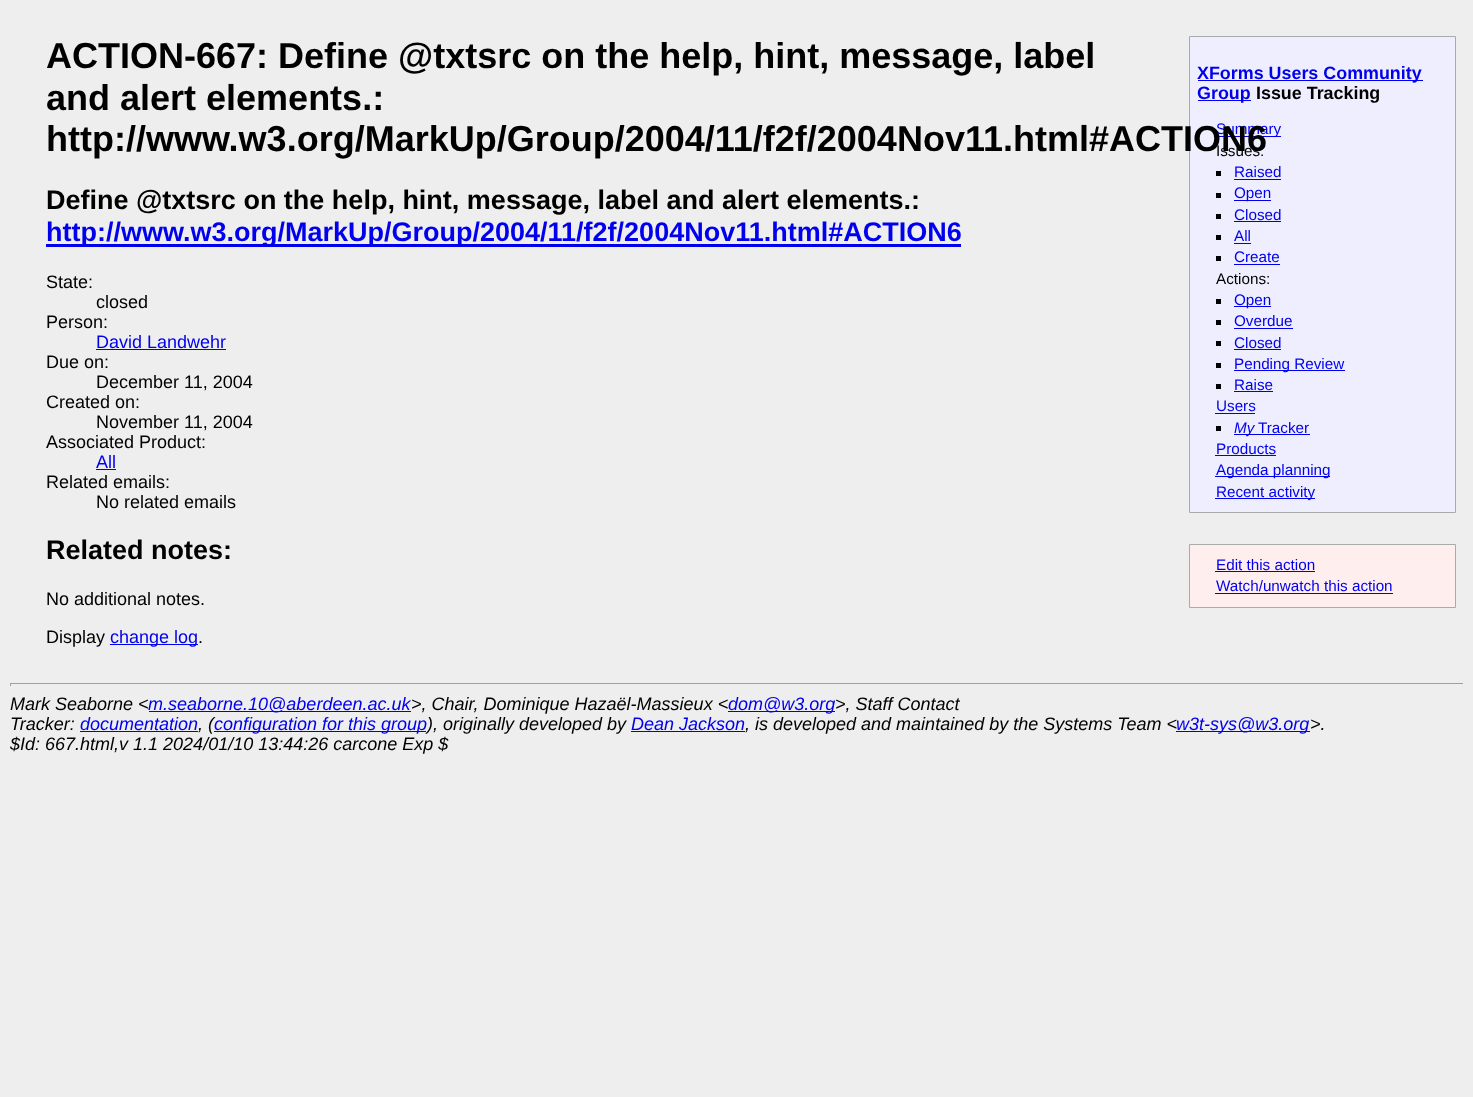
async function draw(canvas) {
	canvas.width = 1473;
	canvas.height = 1097;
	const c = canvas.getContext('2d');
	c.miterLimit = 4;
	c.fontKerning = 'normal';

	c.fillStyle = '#eee';
	c.fillRect(0, 0, 1473, 1097);
	c.font = 'bold 36px Liberation Sans';
	c.fillStyle = '#000';
	c.fillText('ACTION-667: Define @txtsrc on the help, hint, message, label', 46, 68);
	c.fillText('and alert elements.:', 46, 110);
	c.fillStyle = '#eef';
	c.beginPath();
	c.rect(1189.5, 36.5, 266, 476);
	c.fill();
	c.strokeStyle = '#aaa';
	c.stroke();
	c.fillStyle = '#00e';
	c.fillRect(1215, 136, 66, 1);
	c.font = '15.25px Liberation Sans';
	c.fillText('Summary', 1216, 134);
	c.fillStyle = '#000';
	c.fillText('Issues:', 1216, 156);
	c.font = 'bold 36px Liberation Sans';
	c.fillText('http://www.w3.org/MarkUp/Group/2004/11/f2f/2004Nov11.html#ACTION6', 46, 151);
	c.font = 'bold 27px Liberation Sans';
	c.fillText('Define @txtsrc on the help, hint, message, label and alert elements.:', 46, 209);
	c.fillStyle = '#00e';
	c.fillRect(46, 244, 915, 3);
	c.fillText('http://www.w3.org/MarkUp/Group/2004/11/f2f/2004Nov11.html#ACTION6', 46, 241);
	c.font = '18px Liberation Sans';
	c.fillStyle = '#000';
	for (const [text, x, y] of [
		['State:', 46, 288],
		['closed', 96, 308],
		['Person:', 46, 328],
	]) {
		c.fillText(text, x, y);
	}
	c.fillStyle = '#00e';
	c.fillText('David Landwehr', 96, 348);
	c.fillRect(96, 349, 130, 1);
	c.fillStyle = '#000';
	for (const [text, x, y] of [
		['Due on:', 46, 368],
		['December 11, 2004', 96, 388],
		['Created on:', 46, 408],
		['November 11, 2004', 96, 428],
		['Associated Product:', 46, 448],
	]) {
		c.fillText(text, x, y);
	}
	c.fillStyle = '#00e';
	c.fillText('All', 96, 468);
	c.fillRect(96, 469, 20, 1);
	c.fillStyle = '#000';
	c.fillText('Related emails:', 46, 488);
	c.fillText('No related emails', 96, 508);
	c.font = 'bold 27px Liberation Sans';
	c.fillText('Related notes:', 46, 559);
	c.font = '18px Liberation Sans';
	c.fillText('No additional notes.', 46, 605);
	c.fillText('Display', 46, 643);
	c.fillStyle = '#00e';
	c.fillRect(110, 644, 88, 1);
	c.fillText('change log', 110, 643);
	c.fillStyle = '#000';
	c.fillText('.', 198, 643);
	c.fillStyle = '#00e';
	c.fillRect(1198, 80, 225, 1);
	c.font = 'bold 17.9px Liberation Sans';
	c.fillText('XForms Users Community', 1197, 79);
	c.fillRect(1198, 100, 53, 1);
	c.fillText('Group', 1197, 99);
	c.fillStyle = '#000';
	c.fillText('Issue Tracking', 1256, 99);
	c.fillRect(1216, 171, 5, 5);
	c.font = '15.25px Liberation Sans';
	c.fillStyle = '#00e';
	c.fillText('Raised', 1234, 177);
	for (const [x, y, w, h, color] of [
		[1234, 179, 47, 1, '#00e'],
		[1216, 193, 5, 5, '#000'],
		[1234, 200, 37, 1, '#00e'],
	]) {
		c.fillStyle = color;
		c.fillRect(x, y, w, h);
	}
	c.fillText('Open', 1234, 198);
	c.fillStyle = '#000';
	c.fillRect(1216, 214, 5, 5);
	c.fillStyle = '#00e';
	c.fillText('Closed', 1234, 220);
	c.fillRect(1234, 221, 47, 1);
	c.fillStyle = '#000';
	c.fillRect(1216, 235, 5, 5);
	c.fillStyle = '#00e';
	c.fillText('All', 1234, 241);
	c.fillRect(1234, 243, 17, 1);
	c.fillStyle = '#000';
	c.fillRect(1216, 256, 5, 5);
	c.fillStyle = '#00e';
	c.fillText('Create', 1234, 262);
	c.fillRect(1234, 264, 46, 1);
	c.fillStyle = '#000';
	c.fillText('Actions:', 1216, 284);
	c.fillRect(1216, 299, 5, 5);
	c.fillStyle = '#00e';
	c.fillRect(1234, 306, 37, 1);
	c.fillText('Open', 1234, 305);
	c.fillStyle = '#000';
	c.fillRect(1216, 320, 5, 5);
	c.fillStyle = '#00e';
	c.fillText('Overdue', 1234, 326);
	c.fillRect(1234, 328, 59, 1);
	c.fillStyle = '#000';
	c.fillRect(1216, 341, 5, 5);
	c.fillStyle = '#00e';
	c.fillText('Closed', 1234, 348);
	for (const [x, y, w, h, color] of [
		[1234, 349, 47, 1, '#00e'],
		[1216, 363, 5, 5, '#000'],
		[1234, 370, 111, 1, '#00e'],
	]) {
		c.fillStyle = color;
		c.fillRect(x, y, w, h);
	}
	c.fillText('Pending Review', 1234, 369);
	c.fillStyle = '#000';
	c.fillRect(1216, 384, 5, 5);
	c.fillStyle = '#00e';
	c.fillText('Raise', 1234, 390);
	c.fillRect(1234, 391, 39, 1);
	c.fillText('Users', 1216, 411);
	for (const [x, y, w, h, color] of [
		[1215, 413, 40, 1, '#00e'],
		[1216, 426, 5, 5, '#000'],
		[1234, 434, 20, 1, '#00e'],
	]) {
		c.fillStyle = color;
		c.fillRect(x, y, w, h);
	}
	c.font = 'italic 15.25px Liberation Sans';
	c.fillText('My', 1234, 433);
	c.fillRect(1254, 434, 56, 1);
	c.font = '15.25px Liberation Sans';
	c.fillText('Tracker', 1258, 433);
	c.fillText('Products', 1216, 454);
	c.fillRect(1215, 455, 61, 1);
	c.fillRect(1215, 476, 115, 1);
	c.fillText('Agenda planning', 1216, 475);
	c.fillRect(1215, 498, 100, 1);
	c.fillText('Recent activity', 1216, 497);
	c.fillStyle = '#fee';
	c.beginPath();
	c.rect(1189.5, 544.5, 266, 63);
	c.fill();
	c.stroke();
	c.fillStyle = '#00e';
	c.fillText('Edit this action', 1216, 570);
	c.fillRect(1215, 571, 100, 1);
	c.fillText('Watch/unwatch this action', 1216, 591);
	for (const [x, y, w, h, color] of [
		[1215, 593, 178, 1, '#00e'],
		[10, 683, 1454, 1, '#9f9f9f'],
		[1463, 683, 1, 3, '#eee'],
		[10, 683, 1, 3, '#9f9f9f'],
	]) {
		c.fillStyle = color;
		c.fillRect(x, y, w, h);
	}
	c.font = 'italic 18px Liberation Sans';
	c.fillStyle = '#000';
	c.fillText('Mark Seaborne <', 10, 710);
	c.fillStyle = '#00e';
	c.fillRect(149, 711, 262, 1);
	c.fillText('m.seaborne.10@aberdeen.ac.uk', 148, 710);
	c.fillStyle = '#000';
	c.fillText('>, Chair, Dominique Hazaël-Massieux <', 411, 710);
	c.fillStyle = '#00e';
	c.fillRect(728, 711, 107, 1);
	c.fillText('dom@w3.org', 728, 710);
	c.fillStyle = '#000';
	c.fillText('>, Staff Contact', 835, 710);
	c.fillText('Tracker:', 10, 730);
	c.fillStyle = '#00e';
	c.fillText('documentation', 80, 730);
	c.fillRect(80, 731, 118, 1);
	c.fillStyle = '#000';
	c.fillText(', (', 198, 730);
	c.fillStyle = '#00e';
	c.fillRect(214, 731, 212, 1);
	c.fillText('configuration for this group', 214, 730);
	c.fillStyle = '#000';
	c.fillText('), originally developed by', 427, 730);
	c.fillStyle = '#00e';
	c.fillText('Dean Jackson', 631, 730);
	c.fillRect(631, 731, 114, 1);
	c.fillStyle = '#000';
	c.fillText(', is developed and maintained by the Systems Team <', 745, 730);
	c.fillStyle = '#00e';
	c.fillRect(1176, 731, 134, 1);
	c.fillText('w3t-sys@w3.org', 1176, 730);
	c.fillStyle = '#000';
	c.fillText('>.', 1310, 730);
	c.fillText('$Id: 667.html,v 1.1 2024/01/10 13:44:26 carcone Exp $', 10, 750);
}

draw(document.querySelector('canvas'));
